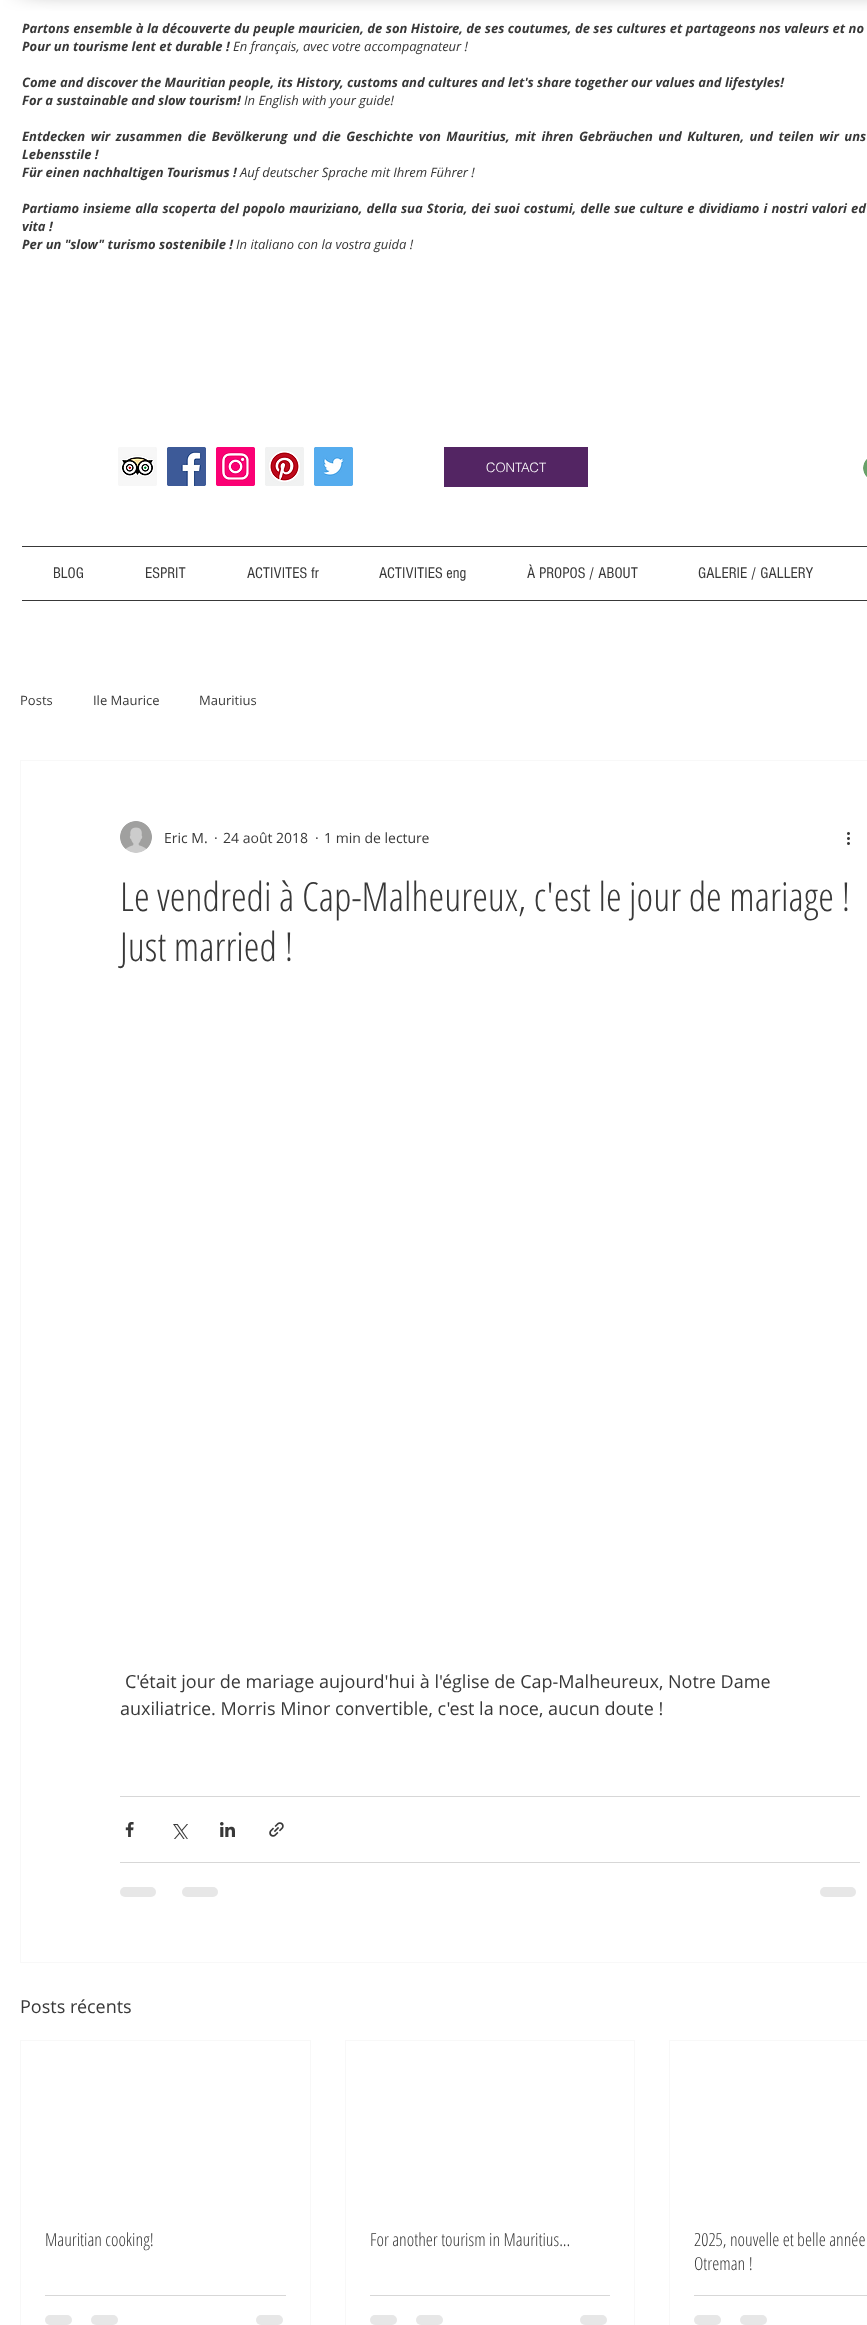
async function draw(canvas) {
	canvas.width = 867;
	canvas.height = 2325;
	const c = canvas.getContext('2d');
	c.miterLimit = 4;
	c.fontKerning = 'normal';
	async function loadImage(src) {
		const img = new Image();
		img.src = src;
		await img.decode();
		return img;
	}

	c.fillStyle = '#fff';
	c.fillRect(0, 0, 867, 2325);
	c.drawImage(await loadImage('img1.png'), 3, 0, 97, 11);
	c.drawImage(await loadImage('img2.png'), 100, 0, 767, 11);
	c.wordSpacing = '0.1px';
	c.font = 'italic bold 13px Open Sans';
	c.fillStyle = '#383838';
	c.fillText('Partons ensemble à la découverte du peuple mauricien, de son Histoire, de ses coutumes, de ses cultures et partageons nos valeurs et no', 22, 33);
	c.wordSpacing = '0px';
	c.fillText('Pour un tourisme lent et durable !', 22, 51);
	c.font = 'italic 13px Open Sans';
	c.fillText('En français, avec votre accompagnateur !', 233, 51);
	c.font = 'italic bold 13px Open Sans';
	c.fillText('Come and discover the Mauritian people, its History, customs and cultures and let\'s share together our values and lifestyles!', 22, 87);
	c.fillText('For a sustainable and slow tourism!', 22, 105);
	c.font = 'italic 13px Open Sans';
	c.fillText('In English with your guide!', 244, 105);
	c.font = 'italic bold 13px Open Sans';
	c.fillText('Entdec', 22, 141);
	c.wordSpacing = '2.1px';
	c.fillText('ken wir zusammen die Bevölkerung und die Geschichte von Mauritius, mit ihren Gebräuchen und Kulturen, und teilen wir uns', 63, 141);
	c.wordSpacing = '0px';
	c.fillText('Lebensstile !', 22, 159);
	c.fillText('Für einen nachhaltigen Tourismus !', 22, 177);
	c.font = 'italic 13px Open Sans';
	c.fillText('Auf deutscher Sprache mit Ihrem Führer !', 240, 177);
	c.wordSpacing = '0.7px';
	c.font = 'italic bold 13px Open Sans';
	c.fillText('Partiamo insieme alla scoperta del popolo mauriziano, della sua Storia, dei suoi costumi, delle sue culture e dividiamo i nostri valori ed', 22, 213);
	c.wordSpacing = '0px';
	c.fillText('vita !', 22, 231);
	c.fillText('Per un "slow" turismo sostenibile !', 22, 249);
	c.font = 'italic 13px Open Sans';
	c.fillText('In italiano con la vostra guida !', 236, 249);
	c.drawImage(await loadImage('img3.png'), 118, 447, 39, 39);
	c.drawImage(await loadImage('img4.png'), 167, 447, 39, 39);
	c.drawImage(await loadImage('img5.png'), 216, 447, 39, 39);
	c.drawImage(await loadImage('img6.png'), 265, 447, 39, 39);
	c.drawImage(await loadImage('img7.png'), 314, 447, 39, 39);
	c.fillStyle = '#532563';
	c.fillRect(444, 447, 144, 40);
	c.font = '300 13px helvetica';
	c.fillStyle = '#fff';
	c.fillText('CONTACT', 486, 472);
	c.drawImage(await loadImage('img8.png'), 863, 459, 4, 18);
	c.fillStyle = '#383838';
	c.fillRect(22, 546, 845, 1);
	c.fillRect(22, 600, 845, 1);
	c.font = '16px "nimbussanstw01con"';
	for (const [text, x, y] of [
		['BLOG', 53, 578],
		['ESPRIT', 145, 578],
		['ACTIVITES fr', 247, 578],
		['ACTIVITIES eng', 379, 578],
		['À PROPOS / ABOUT', 527, 578],
		['GALERIE / GALLERY', 698, 578],
	]) {
		c.fillText(text, x, y);
	}
	c.font = '13px Open Sans';
	for (const [text, x, y] of [
		['Posts', 20, 705],
		['Ile Maurice', 93, 705],
		['Mauritius', 199, 705],
	]) {
		c.fillText(text, x, y);
	}
	c.strokeStyle = '#f8f8f8';
	c.strokeRect(20.5, 760.5, 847, 1202);
	c.drawImage(await loadImage('img9.png'), 120, 821, 32, 32);
	c.font = '14px Open Sans';
	for (const [text, x, y] of [
		['Eric M.', 164, 843],
		['·', 214, 843],
		['24 août 2018', 223, 843],
		['·', 315, 843],
		['1 min de lecture', 324, 843],
	]) {
		c.fillText(text, x, y);
	}
	c.drawImage(await loadImage('img10.png'), 847, 832, 3, 13);
	c.font = '300 40px Open Sans Condensed';
	c.fillText('Le vendredi à Cap-Malheureux, c\'est le jour de mariage !', 120, 911);
	c.fillText('Just married !', 120, 961);
	c.font = '18px Open Sans';
	c.fillText('C\'était jour de mariage aujourd\'hui à l\'église de Cap-Malheureux, Notre Dame', 125, 1688);
	c.fillText('auxiliatrice. Morris Minor convertible, c\'est la noce, aucun doute !', 120, 1715);
	c.fillStyle = '#d7d7d7';
	c.fillRect(120, 1796, 740, 1);
	c.drawImage(await loadImage('img11.png'), 125, 1822, 9, 15);
	c.drawImage(await loadImage('img12.png'), 173, 1824, 15, 15);
	c.drawImage(await loadImage('img13.png'), 220, 1822, 15, 15);
	c.drawImage(await loadImage('img14.png'), 269, 1822, 15, 15);
	c.fillRect(120, 1862, 740, 1);
	c.fillStyle = '#e7e7e7';
	c.beginPath();
	c.roundRect(120, 1887, 36, 10, 5);
	c.fill();
	c.beginPath();
	c.roundRect(182, 1887, 36, 10, 5);
	c.fill();
	c.beginPath();
	c.roundRect(820, 1887, 36, 10, 5);
	c.fill();
	c.fillStyle = '#383838';
	c.fillText('Posts récents', 20, 2013);
	c.strokeRect(20.5, 2040.5, 290, 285);
	c.font = '300 18px Open Sans Condensed';
	c.fillText('Mauritian cooking!', 45, 2246);
	c.fillStyle = '#d7d7d7';
	c.fillRect(45, 2295, 241, 1);
	c.fillStyle = '#e7e7e7';
	c.beginPath();
	c.roundRect(45, 2315, 27, 10, 5);
	c.fill();
	c.beginPath();
	c.roundRect(91, 2315, 27, 10, 5);
	c.fill();
	c.beginPath();
	c.roundRect(256, 2315, 27, 10, 5);
	c.fill();
	c.strokeRect(345.5, 2040.5, 289, 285);
	c.fillStyle = '#383838';
	c.fillText('For another tourism in Mauritius...', 370, 2246);
	c.fillStyle = '#d7d7d7';
	c.fillRect(370, 2295, 240, 1);
	c.fillStyle = '#e7e7e7';
	c.beginPath();
	c.roundRect(370, 2315, 27, 10, 5);
	c.fill();
	c.beginPath();
	c.roundRect(416, 2315, 27, 10, 5);
	c.fill();
	c.beginPath();
	c.roundRect(580, 2315, 27, 10, 5);
	c.fill();
	c.strokeRect(669.5, 2040.5, 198, 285);
	c.fillStyle = '#383838';
	c.fillText('2025, nouvelle et belle année', 694, 2246);
	c.fillText('Otreman !', 694, 2270);
	c.fillStyle = '#d7d7d7';
	c.fillRect(694, 2295, 173, 1);
	c.fillStyle = '#e7e7e7';
	c.beginPath();
	c.roundRect(694, 2315, 27, 10, 5);
	c.fill();
	c.beginPath();
	c.roundRect(740, 2315, 27, 10, 5);
	c.fill();
}

draw(document.querySelector('canvas'));
